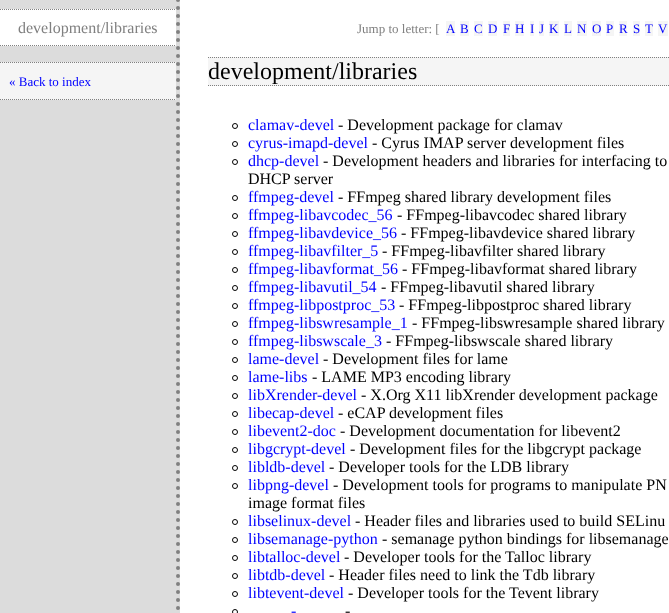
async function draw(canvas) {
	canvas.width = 669;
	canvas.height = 613;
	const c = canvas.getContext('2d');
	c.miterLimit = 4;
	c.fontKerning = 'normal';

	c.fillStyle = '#fff';
	c.fillRect(0, 0, 669, 613);
	c.fillStyle = '#dcdcdc';
	c.fillRect(0, 0, 180, 613);
	c.beginPath();
	c.moveTo(178, 0);
	c.lineTo(178, 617);
	c.strokeStyle = '#808080';
	c.lineWidth = 4;
	c.lineCap = 'round';
	c.setLineDash([0, 8]);
	c.stroke();
	c.fillStyle = '#fff';
	c.fillRect(0, 9, 176, 37);
	c.beginPath();
	c.moveTo(0, 9.5);
	c.lineTo(176, 9.5);
	c.lineWidth = 1;
	c.lineCap = 'butt';
	c.setLineDash([1, 1]);
	c.stroke();
	c.beginPath();
	c.moveTo(0, 45.5);
	c.lineTo(176, 45.5);
	c.stroke();
	c.font = '16px Liberation Serif';
	c.fillStyle = '#808080';
	c.fillText('development/libraries', 18, 33);
	c.fillStyle = '#f5f5f5';
	c.fillRect(0, 62, 176, 38);
	c.beginPath();
	c.moveTo(0, 62.5);
	c.lineTo(176, 62.5);
	c.stroke();
	c.beginPath();
	c.moveTo(0, 99.5);
	c.lineTo(176, 99.5);
	c.stroke();
	c.font = '13px Liberation Serif';
	c.fillStyle = '#00f';
	c.fillText('« Back to index', 9, 86);
	c.fillStyle = '#808080';
	c.fillText('Jump to letter: [', 357, 33);
	c.fillStyle = '#f5f5f5';
	c.fillRect(446, 21, 9, 15);
	c.fillStyle = '#00f';
	c.fillText('A', 446, 33);
	c.fillStyle = '#f5f5f5';
	c.fillRect(460, 21, 9, 15);
	c.fillStyle = '#00f';
	c.fillText('B', 460, 33);
	c.fillStyle = '#f5f5f5';
	c.fillRect(474, 21, 9, 15);
	c.fillStyle = '#00f';
	c.fillText('C', 474, 33);
	c.fillStyle = '#f5f5f5';
	c.fillRect(488, 21, 9, 15);
	c.fillStyle = '#00f';
	c.fillText('D', 488, 33);
	c.fillStyle = '#f5f5f5';
	c.fillRect(503, 21, 7, 15);
	c.fillStyle = '#00f';
	c.fillText('F', 503, 33);
	c.fillStyle = '#f5f5f5';
	c.fillRect(515, 21, 9, 15);
	c.fillStyle = '#00f';
	c.fillText('H', 515, 33);
	c.fillStyle = '#f5f5f5';
	c.fillRect(530, 21, 4, 15);
	c.fillStyle = '#00f';
	c.fillText('I', 530, 33);
	c.fillStyle = '#f5f5f5';
	c.fillRect(539, 21, 5, 15);
	c.fillStyle = '#00f';
	c.fillText('J', 539, 33);
	c.fillStyle = '#f5f5f5';
	c.fillRect(549, 21, 10, 15);
	c.fillStyle = '#00f';
	c.fillText('K', 549, 33);
	c.fillStyle = '#f5f5f5';
	c.fillRect(564, 21, 8, 15);
	c.fillStyle = '#00f';
	c.fillText('L', 564, 33);
	c.fillStyle = '#f5f5f5';
	c.fillRect(577, 21, 10, 15);
	c.fillStyle = '#00f';
	c.fillText('N', 577, 33);
	c.fillStyle = '#f5f5f5';
	c.fillRect(592, 21, 9, 15);
	c.fillStyle = '#00f';
	c.fillText('O', 592, 33);
	c.fillStyle = '#f5f5f5';
	c.fillRect(606, 21, 8, 15);
	c.fillStyle = '#00f';
	c.fillText('P', 606, 33);
	c.fillStyle = '#f5f5f5';
	c.fillRect(619, 21, 8, 15);
	c.fillStyle = '#00f';
	c.fillText('R', 619, 33);
	c.fillStyle = '#f5f5f5';
	c.fillRect(633, 21, 7, 15);
	c.fillStyle = '#00f';
	c.fillText('S', 633, 33);
	c.fillStyle = '#f5f5f5';
	c.fillRect(645, 21, 8, 15);
	c.fillStyle = '#00f';
	c.fillText('T', 645, 33);
	c.fillStyle = '#f5f5f5';
	c.fillRect(658, 21, 10, 15);
	c.fillStyle = '#00f';
	c.fillText('V', 658, 33);
	c.fillStyle = '#f5f5f5';
	c.fillRect(208, 57, 461, 29);
	c.beginPath();
	c.moveTo(208, 57.5);
	c.lineTo(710, 57.5);
	c.stroke();
	c.beginPath();
	c.moveTo(208, 85.5);
	c.lineTo(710, 85.5);
	c.stroke();
	c.font = '24px Liberation Serif';
	c.fillStyle = '#000';
	c.fillText('development/libraries', 208, 79);
	c.beginPath();
	c.arc(235, 126, 2.5, 0, 2 * Math.PI);
	c.strokeStyle = '#000';
	c.setLineDash([]);
	c.stroke();
	c.font = '16px Liberation Serif';
	c.fillStyle = '#00f';
	c.fillText('clamav-devel', 248, 130);
	c.fillStyle = '#000';
	c.fillText('- Development package for clamav', 338, 130);
	c.beginPath();
	c.arc(235, 144, 2.5, 0, 2 * Math.PI);
	c.stroke();
	c.fillStyle = '#00f';
	c.fillText('cyrus-imapd-devel', 248, 148);
	c.fillStyle = '#000';
	c.fillText('- Cyrus IMAP server development files', 372, 148);
	c.beginPath();
	c.arc(235, 162, 2.5, 0, 2 * Math.PI);
	c.stroke();
	c.fillStyle = '#00f';
	c.fillText('dhcp-devel', 248, 166);
	c.fillStyle = '#000';
	c.fillText('- Development headers and libraries for interfacing to', 323, 166);
	c.fillText('DHCP server', 248, 184);
	c.beginPath();
	c.arc(235, 198, 2.5, 0, 2 * Math.PI);
	c.stroke();
	c.fillStyle = '#00f';
	c.fillText('ffmpeg-devel', 248, 202);
	c.fillStyle = '#000';
	c.fillText('- FFmpeg shared library development files', 338, 202);
	c.beginPath();
	c.arc(235, 216, 2.5, 0, 2 * Math.PI);
	c.stroke();
	c.fillStyle = '#00f';
	c.fillText('ffmpeg-libavcodec_56', 248, 220);
	c.fillStyle = '#000';
	c.fillText('- FFmpeg-libavcodec shared library', 397, 220);
	c.beginPath();
	c.arc(235, 234, 2.5, 0, 2 * Math.PI);
	c.stroke();
	c.fillStyle = '#00f';
	c.fillText('ffmpeg-libavdevice_56', 248, 238);
	c.fillStyle = '#000';
	c.fillText('- FFmpeg-libavdevice shared library', 401, 238);
	c.beginPath();
	c.arc(235, 252, 2.5, 0, 2 * Math.PI);
	c.stroke();
	c.fillStyle = '#00f';
	c.fillText('ffmpeg-libavfilter_5', 248, 256);
	c.fillStyle = '#000';
	c.fillText('- FFmpeg-libavfilter shared library', 382, 256);
	c.beginPath();
	c.arc(235, 270, 2.5, 0, 2 * Math.PI);
	c.stroke();
	c.fillStyle = '#00f';
	c.fillText('ffmpeg-libavformat_56', 248, 274);
	c.fillStyle = '#000';
	c.fillText('- FFmpeg-libavformat shared library', 402, 274);
	c.beginPath();
	c.arc(235, 288, 2.5, 0, 2 * Math.PI);
	c.stroke();
	c.fillStyle = '#00f';
	c.fillText('ffmpeg-libavutil_54', 248, 292);
	c.fillStyle = '#000';
	c.fillText('- FFmpeg-libavutil shared library', 381, 292);
	c.beginPath();
	c.arc(235, 306, 2.5, 0, 2 * Math.PI);
	c.stroke();
	c.fillStyle = '#00f';
	c.fillText('ffmpeg-libpostproc_53', 248, 310);
	c.fillStyle = '#000';
	c.fillText('- FFmpeg-libpostproc shared library', 399, 310);
	c.beginPath();
	c.arc(235, 324, 2.5, 0, 2 * Math.PI);
	c.stroke();
	c.fillStyle = '#00f';
	c.fillText('ffmpeg-libswresample_1', 248, 328);
	c.fillStyle = '#000';
	c.fillText('- FFmpeg-libswresample shared library', 412, 328);
	c.beginPath();
	c.arc(235, 342, 2.5, 0, 2 * Math.PI);
	c.stroke();
	c.fillStyle = '#00f';
	c.fillText('ffmpeg-libswscale_3', 248, 346);
	c.fillStyle = '#000';
	c.fillText('- FFmpeg-libswscale shared library', 386, 346);
	c.beginPath();
	c.arc(235, 360, 2.5, 0, 2 * Math.PI);
	c.stroke();
	c.fillStyle = '#00f';
	c.fillText('lame-devel', 248, 364);
	c.fillStyle = '#000';
	c.fillText('- Development files for lame', 323, 364);
	c.beginPath();
	c.arc(235, 378, 2.5, 0, 2 * Math.PI);
	c.stroke();
	c.fillStyle = '#00f';
	c.fillText('lame-libs', 248, 382);
	c.fillStyle = '#000';
	c.fillText('- LAME MP3 encoding library', 312, 382);
	c.beginPath();
	c.arc(235, 396, 2.5, 0, 2 * Math.PI);
	c.stroke();
	c.fillStyle = '#00f';
	c.fillText('libXrender-devel', 248, 400);
	c.fillStyle = '#000';
	c.fillText('- X.Org X11 libXrender development package', 361, 400);
	c.beginPath();
	c.arc(235, 414, 2.5, 0, 2 * Math.PI);
	c.stroke();
	c.fillStyle = '#00f';
	c.fillText('libecap-devel', 248, 418);
	c.fillStyle = '#000';
	c.fillText('- eCAP development files', 338, 418);
	c.beginPath();
	c.arc(235, 432, 2.5, 0, 2 * Math.PI);
	c.stroke();
	c.fillStyle = '#00f';
	c.fillText('libevent2-doc', 248, 436);
	c.fillStyle = '#000';
	c.fillText('- Development documentation for libevent2', 340, 436);
	c.beginPath();
	c.arc(235, 450, 2.5, 0, 2 * Math.PI);
	c.stroke();
	c.fillStyle = '#00f';
	c.fillText('libgcrypt-devel', 248, 454);
	c.fillStyle = '#000';
	c.fillText('- Development files for the libgcrypt package', 350, 454);
	c.beginPath();
	c.arc(235, 468, 2.5, 0, 2 * Math.PI);
	c.stroke();
	c.fillStyle = '#00f';
	c.fillText('libldb-devel', 248, 472);
	c.fillStyle = '#000';
	c.fillText('- Developer tools for the LDB library', 329, 472);
	c.beginPath();
	c.arc(235, 486, 2.5, 0, 2 * Math.PI);
	c.stroke();
	c.fillStyle = '#00f';
	c.fillText('libpng-devel', 248, 490);
	c.fillStyle = '#000';
	c.fillText('- Development tools for programs to manipulate PN', 333, 490);
	c.fillText('image format files', 248, 508);
	c.beginPath();
	c.arc(235, 522, 2.5, 0, 2 * Math.PI);
	c.stroke();
	c.fillStyle = '#00f';
	c.fillText('libselinux-devel', 248, 526);
	c.fillStyle = '#000';
	c.fillText('- Header files and libraries used to build SELinu', 355, 526);
	c.beginPath();
	c.arc(235, 540, 2.5, 0, 2 * Math.PI);
	c.stroke();
	c.fillStyle = '#00f';
	c.fillText('libsemanage-python', 248, 544);
	c.fillStyle = '#000';
	c.fillText('- semanage python bindings for libsemanage', 382, 544);
	c.beginPath();
	c.arc(235, 558, 2.5, 0, 2 * Math.PI);
	c.stroke();
	c.fillStyle = '#00f';
	c.fillText('libtalloc-devel', 248, 562);
	c.fillStyle = '#000';
	c.fillText('- Developer tools for the Talloc library', 344, 562);
	c.beginPath();
	c.arc(235, 576, 2.5, 0, 2 * Math.PI);
	c.stroke();
	c.fillStyle = '#00f';
	c.fillText('libtdb-devel', 248, 580);
	c.fillStyle = '#000';
	c.fillText('- Header files need to link the Tdb library', 329, 580);
	c.beginPath();
	c.arc(235, 594, 2.5, 0, 2 * Math.PI);
	c.stroke();
	c.fillStyle = '#00f';
	c.fillText('libtevent-devel', 248, 598);
	c.fillStyle = '#000';
	c.fillText('- Developer tools for the Tevent library', 348, 598);
	c.beginPath();
	c.arc(235, 612, 2.5, 0, 2 * Math.PI);
	c.stroke();
	c.fillStyle = '#00f';
	c.fillText('-', 291, 616);
	c.fillStyle = '#000';
	c.fillText('-', 345, 616);
}

draw(document.querySelector('canvas'));
